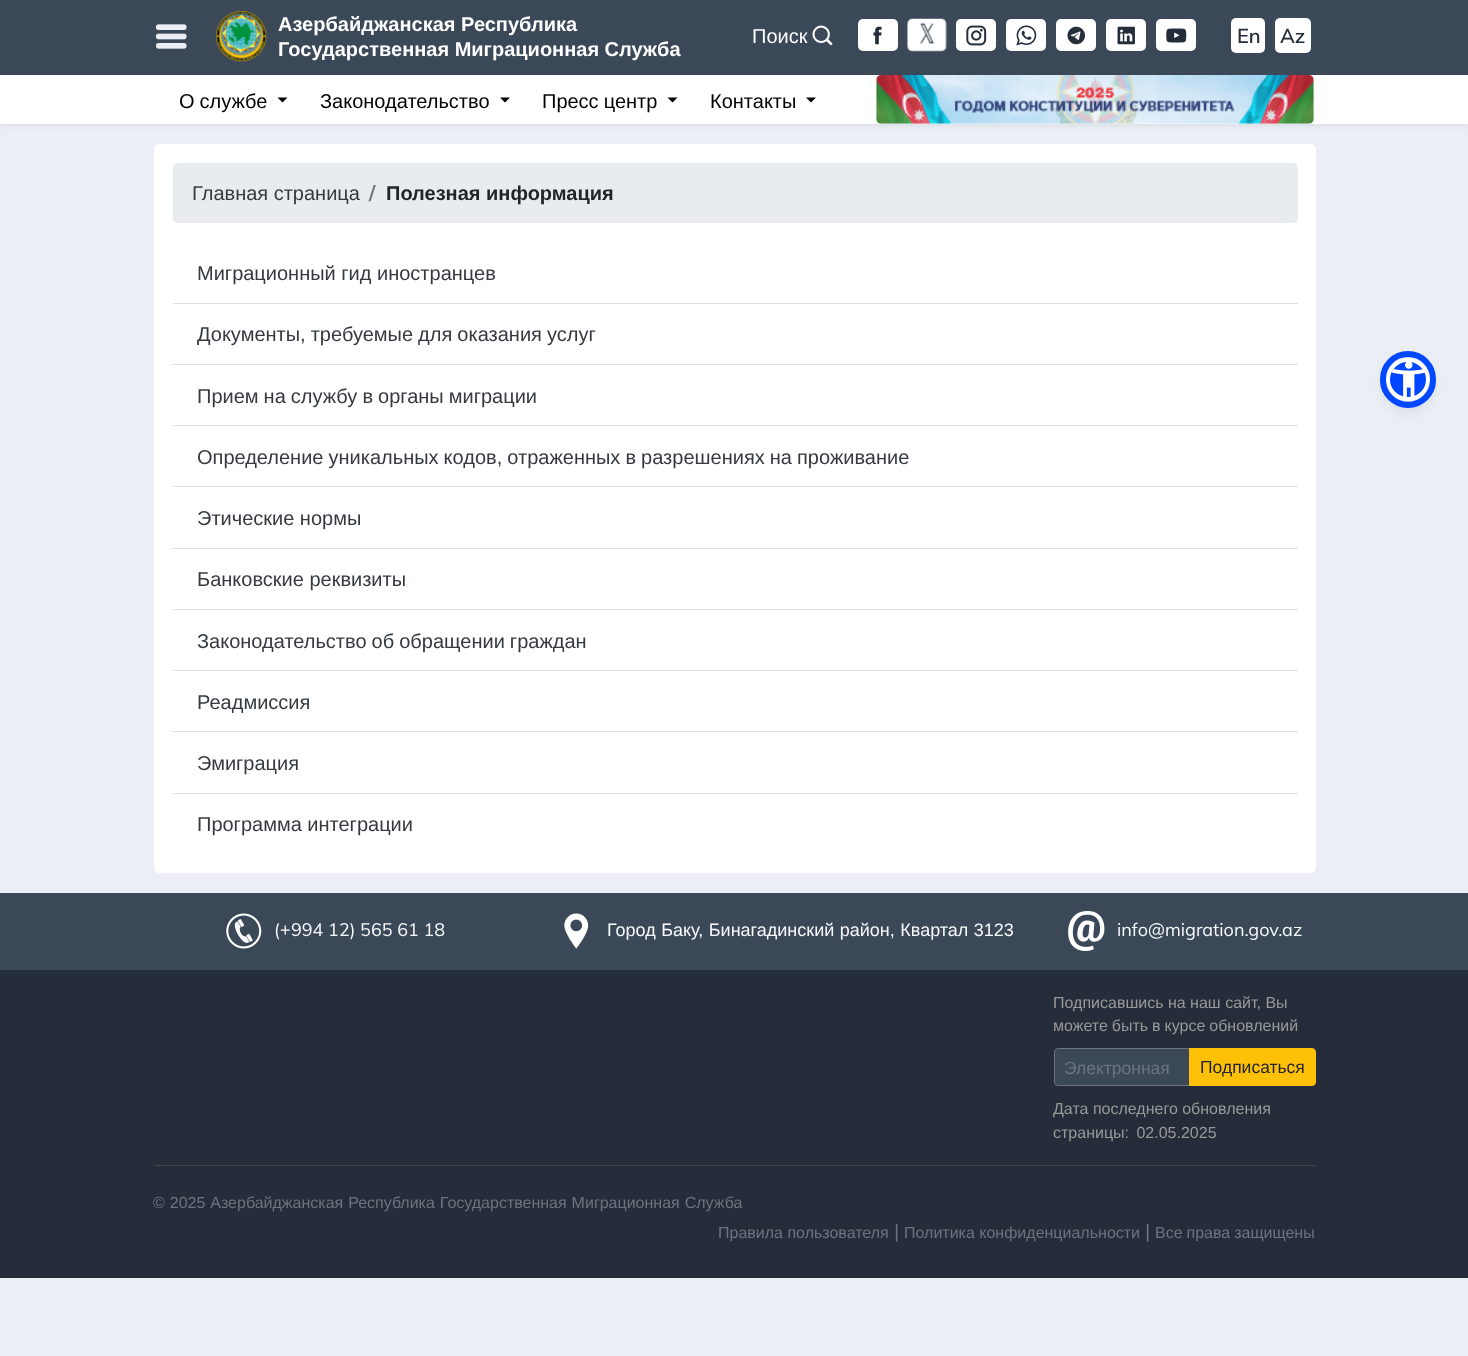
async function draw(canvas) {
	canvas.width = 1468;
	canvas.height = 1356;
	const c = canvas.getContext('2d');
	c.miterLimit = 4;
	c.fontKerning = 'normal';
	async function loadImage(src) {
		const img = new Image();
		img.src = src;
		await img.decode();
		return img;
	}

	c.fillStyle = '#ebeff5';
	c.fillRect(0, 0, 1468, 1356);
	c.fillStyle = '#00000014';
	c.filter = 'blur(3px)';
	c.beginPath();
	c.rect(0, 76, 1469, 49);
	c.fill();
	c.filter = 'none';
	c.fillStyle = '#3a4858';
	c.fillRect(0, 0, 1468, 75);
	c.drawImage(await loadImage('img1.png'), 155, 24, 32, 25);
	c.drawImage(await loadImage('img2.png'), 216, 11, 51, 51);
	c.font = 'bold 20px Liberation Sans';
	c.fillStyle = '#fff';
	c.fillText('Азербайджанская Республика', 278, 31);
	c.fillText('Государственная Миграционная Служба', 278, 56);
	c.font = '20px Liberation Sans';
	c.fillText('Поиск', 752, 43);
	c.drawImage(await loadImage('img3.png'), 812, 25, 21, 21);
	c.beginPath();
	c.roundRect(858, 19, 40, 32, 5);
	c.fill();
	c.drawImage(await loadImage('img4.png'), 873, 26, 9, 19);
	c.drawImage(await loadImage('img5.png'), 907, 18, 40, 34);
	c.beginPath();
	c.roundRect(956, 19, 40, 32, 5);
	c.fill();
	c.drawImage(await loadImage('img6.png'), 966, 25, 21, 21);
	c.beginPath();
	c.roundRect(1006, 19, 40, 32, 5);
	c.fill();
	c.drawImage(await loadImage('img7.png'), 1016, 25, 21, 21);
	c.beginPath();
	c.roundRect(1056, 19, 40, 32, 5);
	c.fill();
	c.drawImage(await loadImage('img8.png'), 1067, 26, 18, 19);
	c.beginPath();
	c.roundRect(1106, 19, 40, 32, 5);
	c.fill();
	c.drawImage(await loadImage('img9.png'), 1117, 26, 18, 19);
	c.beginPath();
	c.roundRect(1156, 19, 40, 32, 5);
	c.fill();
	c.drawImage(await loadImage('img10.png'), 1166, 28, 21, 15);
	c.beginPath();
	c.roundRect(1231, 18, 34, 35, 5);
	c.fill();
	c.font = '600 20px Muli';
	c.fillStyle = '#242d39';
	c.fillText('En', 1237, 43);
	c.fillStyle = '#fff';
	c.beginPath();
	c.roundRect(1275, 18, 36, 35, 5);
	c.fill();
	c.fillStyle = '#242d39';
	c.fillText('Az', 1280, 43);
	c.fillStyle = '#fff';
	c.fillRect(0, 75, 1468, 49);
	c.wordSpacing = '-0.5px';
	c.font = '20px Liberation Sans';
	c.fillStyle = '#000';
	c.fillText('О службе', 179, 108);
	c.beginPath();
	c.moveTo(277.5, 97.5);
	c.lineTo(287.5, 97.5);
	c.lineTo(282.5, 102.5);
	c.closePath();
	c.fill();
	c.wordSpacing = '0px';
	c.fillText('Законодательство', 320, 108);
	c.beginPath();
	c.moveTo(500, 97.5);
	c.lineTo(510, 97.5);
	c.lineTo(505, 102.5);
	c.closePath();
	c.fill();
	c.wordSpacing = '-0.5px';
	c.fillText('Пресс центр', 542, 108);
	c.beginPath();
	c.moveTo(667.5, 97.5);
	c.lineTo(677.5, 97.5);
	c.lineTo(672.5, 102.5);
	c.closePath();
	c.fill();
	c.wordSpacing = '0px';
	c.fillText('Контакты', 710, 108);
	c.beginPath();
	c.moveTo(806, 97.5);
	c.lineTo(816, 97.5);
	c.lineTo(811, 102.5);
	c.closePath();
	c.fill();
	c.drawImage(await loadImage('img11.png'), 876, 75, 438, 49);
	c.fillStyle = '#fff';
	c.beginPath();
	c.roundRect(154, 144, 1162, 729, 5);
	c.fill();
	c.fillStyle = '#e9ecef';
	c.beginPath();
	c.roundRect(173, 163, 1125, 60, 5);
	c.fill();
	c.fillStyle = '#343a40';
	c.fillText('Главная страница', 192, 200);
	c.font = 'bold 20px Muli';
	c.fillStyle = '#6c757d';
	c.fillText('/', 369, 200);
	c.font = 'bold 20px Liberation Sans';
	c.fillStyle = '#212529';
	c.fillText('Полезная информация', 386, 200);
	c.fillStyle = '#dfdfdf';
	c.fillRect(173, 303, 1125, 1);
	c.font = '20px Liberation Sans';
	c.fillStyle = '#343a40';
	c.fillText('Миграционный гид иностранцев', 197, 280);
	c.fillStyle = '#dfdfdf';
	c.fillRect(173, 364, 1125, 1);
	c.wordSpacing = '-0.5px';
	c.fillStyle = '#343a40';
	c.fillText('Документы, требуемые для оказания услуг', 197, 341);
	c.fillStyle = '#dfdfdf';
	c.fillRect(173, 425, 1125, 1);
	c.fillStyle = '#343a40';
	c.fillText('Прием на службу в органы миграции', 197, 403);
	c.fillStyle = '#dfdfdf';
	c.fillRect(173, 486, 1125, 1);
	c.fillStyle = '#343a40';
	c.fillText('Определение уникальных кодов, отраженных в разрешениях на проживание', 197, 464);
	c.fillStyle = '#dfdfdf';
	c.fillRect(173, 548, 1125, 1);
	c.wordSpacing = '0px';
	c.fillStyle = '#343a40';
	c.fillText('Этические нормы', 197, 525);
	c.fillStyle = '#dfdfdf';
	c.fillRect(173, 609, 1125, 1);
	c.fillStyle = '#343a40';
	c.fillText('Банковские реквизиты', 197, 586);
	c.fillStyle = '#dfdfdf';
	c.fillRect(173, 670, 1125, 1);
	c.wordSpacing = '-0.5px';
	c.fillStyle = '#343a40';
	c.fillText('Законодательство об обращении граждан', 197, 648);
	c.fillStyle = '#dfdfdf';
	c.fillRect(173, 731, 1125, 1);
	c.wordSpacing = '0px';
	c.fillStyle = '#343a40';
	c.fillText('Реадмиссия', 197, 709);
	c.fillStyle = '#dfdfdf';
	c.fillRect(173, 793, 1125, 1);
	c.fillStyle = '#343a40';
	c.fillText('Эмиграция', 197, 770);
	c.fillText('Программа интеграции', 197, 831);
	c.fillStyle = '#3a4858';
	c.fillRect(0, 893, 1468, 77);
	c.drawImage(await loadImage('img12.png'), 226, 913, 36, 36);
	c.font = '18px Muli';
	c.fillStyle = '#f8f9fa';
	c.fillText('(', 274, 936);
	c.font = '18px Liberation Sans';
	c.fillText('+', 280, 936);
	c.font = '18px Muli';
	c.fillText('994 12) 565 61 18', 291, 936);
	c.drawImage(await loadImage('img13.png'), 564, 913, 25, 36);
	c.wordSpacing = '0.5px';
	c.font = '18px Liberation Sans';
	c.fillText('Город Баку, Бинагадинский район, Квартал 3123', 607, 936);
	c.drawImage(await loadImage('img14.png'), 1068, 911, 37, 40);
	c.wordSpacing = '0px';
	c.font = '18px Muli';
	c.fillText('info@migration.gov.az', 1117, 936);
	c.fillStyle = '#242d39';
	c.fillRect(0, 970, 1468, 308);
	c.font = '16px Liberation Sans';
	c.fillStyle = '#999';
	c.fillText('Подписавшись на наш сайт, Вы', 1053, 1008);
	c.wordSpacing = '-0.5px';
	c.fillText('можете быть в курсе обновлений', 1053, 1031);
	c.fillStyle = '#3a4858';
	c.beginPath();
	c.roundRect(1055, 1049, 134, 36, [2.5, 0, 0, 2.5]);
	c.fill();
	c.beginPath();
	c.roundRect(1054.5, 1048.5, 135, 37, [3.5, 0, 0, 3.5]);
	c.strokeStyle = '#6c757d';
	c.stroke();
	c.wordSpacing = '0px';
	c.font = '17.5px Liberation Sans';
	c.fillStyle = '#6c757d';
	c.fillText('Электронная', 1064, 1074);
	c.fillStyle = '#ffc107';
	c.beginPath();
	c.roundRect(1189.5, 1048.5, 126, 37, [0, 3.5, 3.5, 0]);
	c.fill();
	c.strokeStyle = '#ffc107';
	c.stroke();
	c.fillStyle = '#212529';
	c.fillText('Подписаться', 1200, 1073);
	c.font = '16px Liberation Sans';
	c.fillStyle = '#999';
	c.fillText('Дата последнего обновления', 1053, 1114);
	c.wordSpacing = '3px';
	c.fillText('страницы: 02.05.2025', 1053, 1138);
	c.fillStyle = '#444';
	c.fillRect(154, 1165, 1162, 1);
	c.wordSpacing = '0.5px';
	c.fillStyle = '#6c757d';
	c.fillText('© 2025 Азербайджанская Республика Государственная Миграционная Служба', 153, 1208);
	c.wordSpacing = '0px';
	c.fillText('Правила пользователя', 718, 1238);
	c.font = '20px Muli';
	c.fillText('|', 894, 1238);
	c.font = '16px Liberation Sans';
	c.fillText('Политика конфиденциальности', 904, 1238);
	c.font = '20px Muli';
	c.fillText('|', 1145, 1238);
	c.wordSpacing = '-0.5px';
	c.font = '16px Liberation Sans';
	c.fillText('Все права защищены', 1155, 1238);
	c.fillStyle = '#5d649433';
	c.filter = 'blur(2.5px)';
	c.beginPath();
	c.roundRect(1386, 360, 44, 44, 22);
	c.fill();
	c.filter = 'none';
	c.fillStyle = '#252c6126';
	c.filter = 'blur(9.5px)';
	c.beginPath();
	c.roundRect(1386, 364, 44, 44, 22);
	c.fill();
	c.filter = 'none';
	c.fillStyle = '#0048ff';
	c.beginPath();
	c.roundRect(1388, 360, 40, 39, 19.5);
	c.fill();
	c.strokeStyle = '#fff';
	c.lineWidth = 4;
	c.stroke();
	c.beginPath();
	c.roundRect(1383, 354, 50, 51, 25);
	c.strokeStyle = '#0048ff';
	c.lineWidth = 6;
	c.stroke();
	c.drawImage(await loadImage('img15.png'), 1391, 362, 34, 35);
}

draw(document.querySelector('canvas'));
